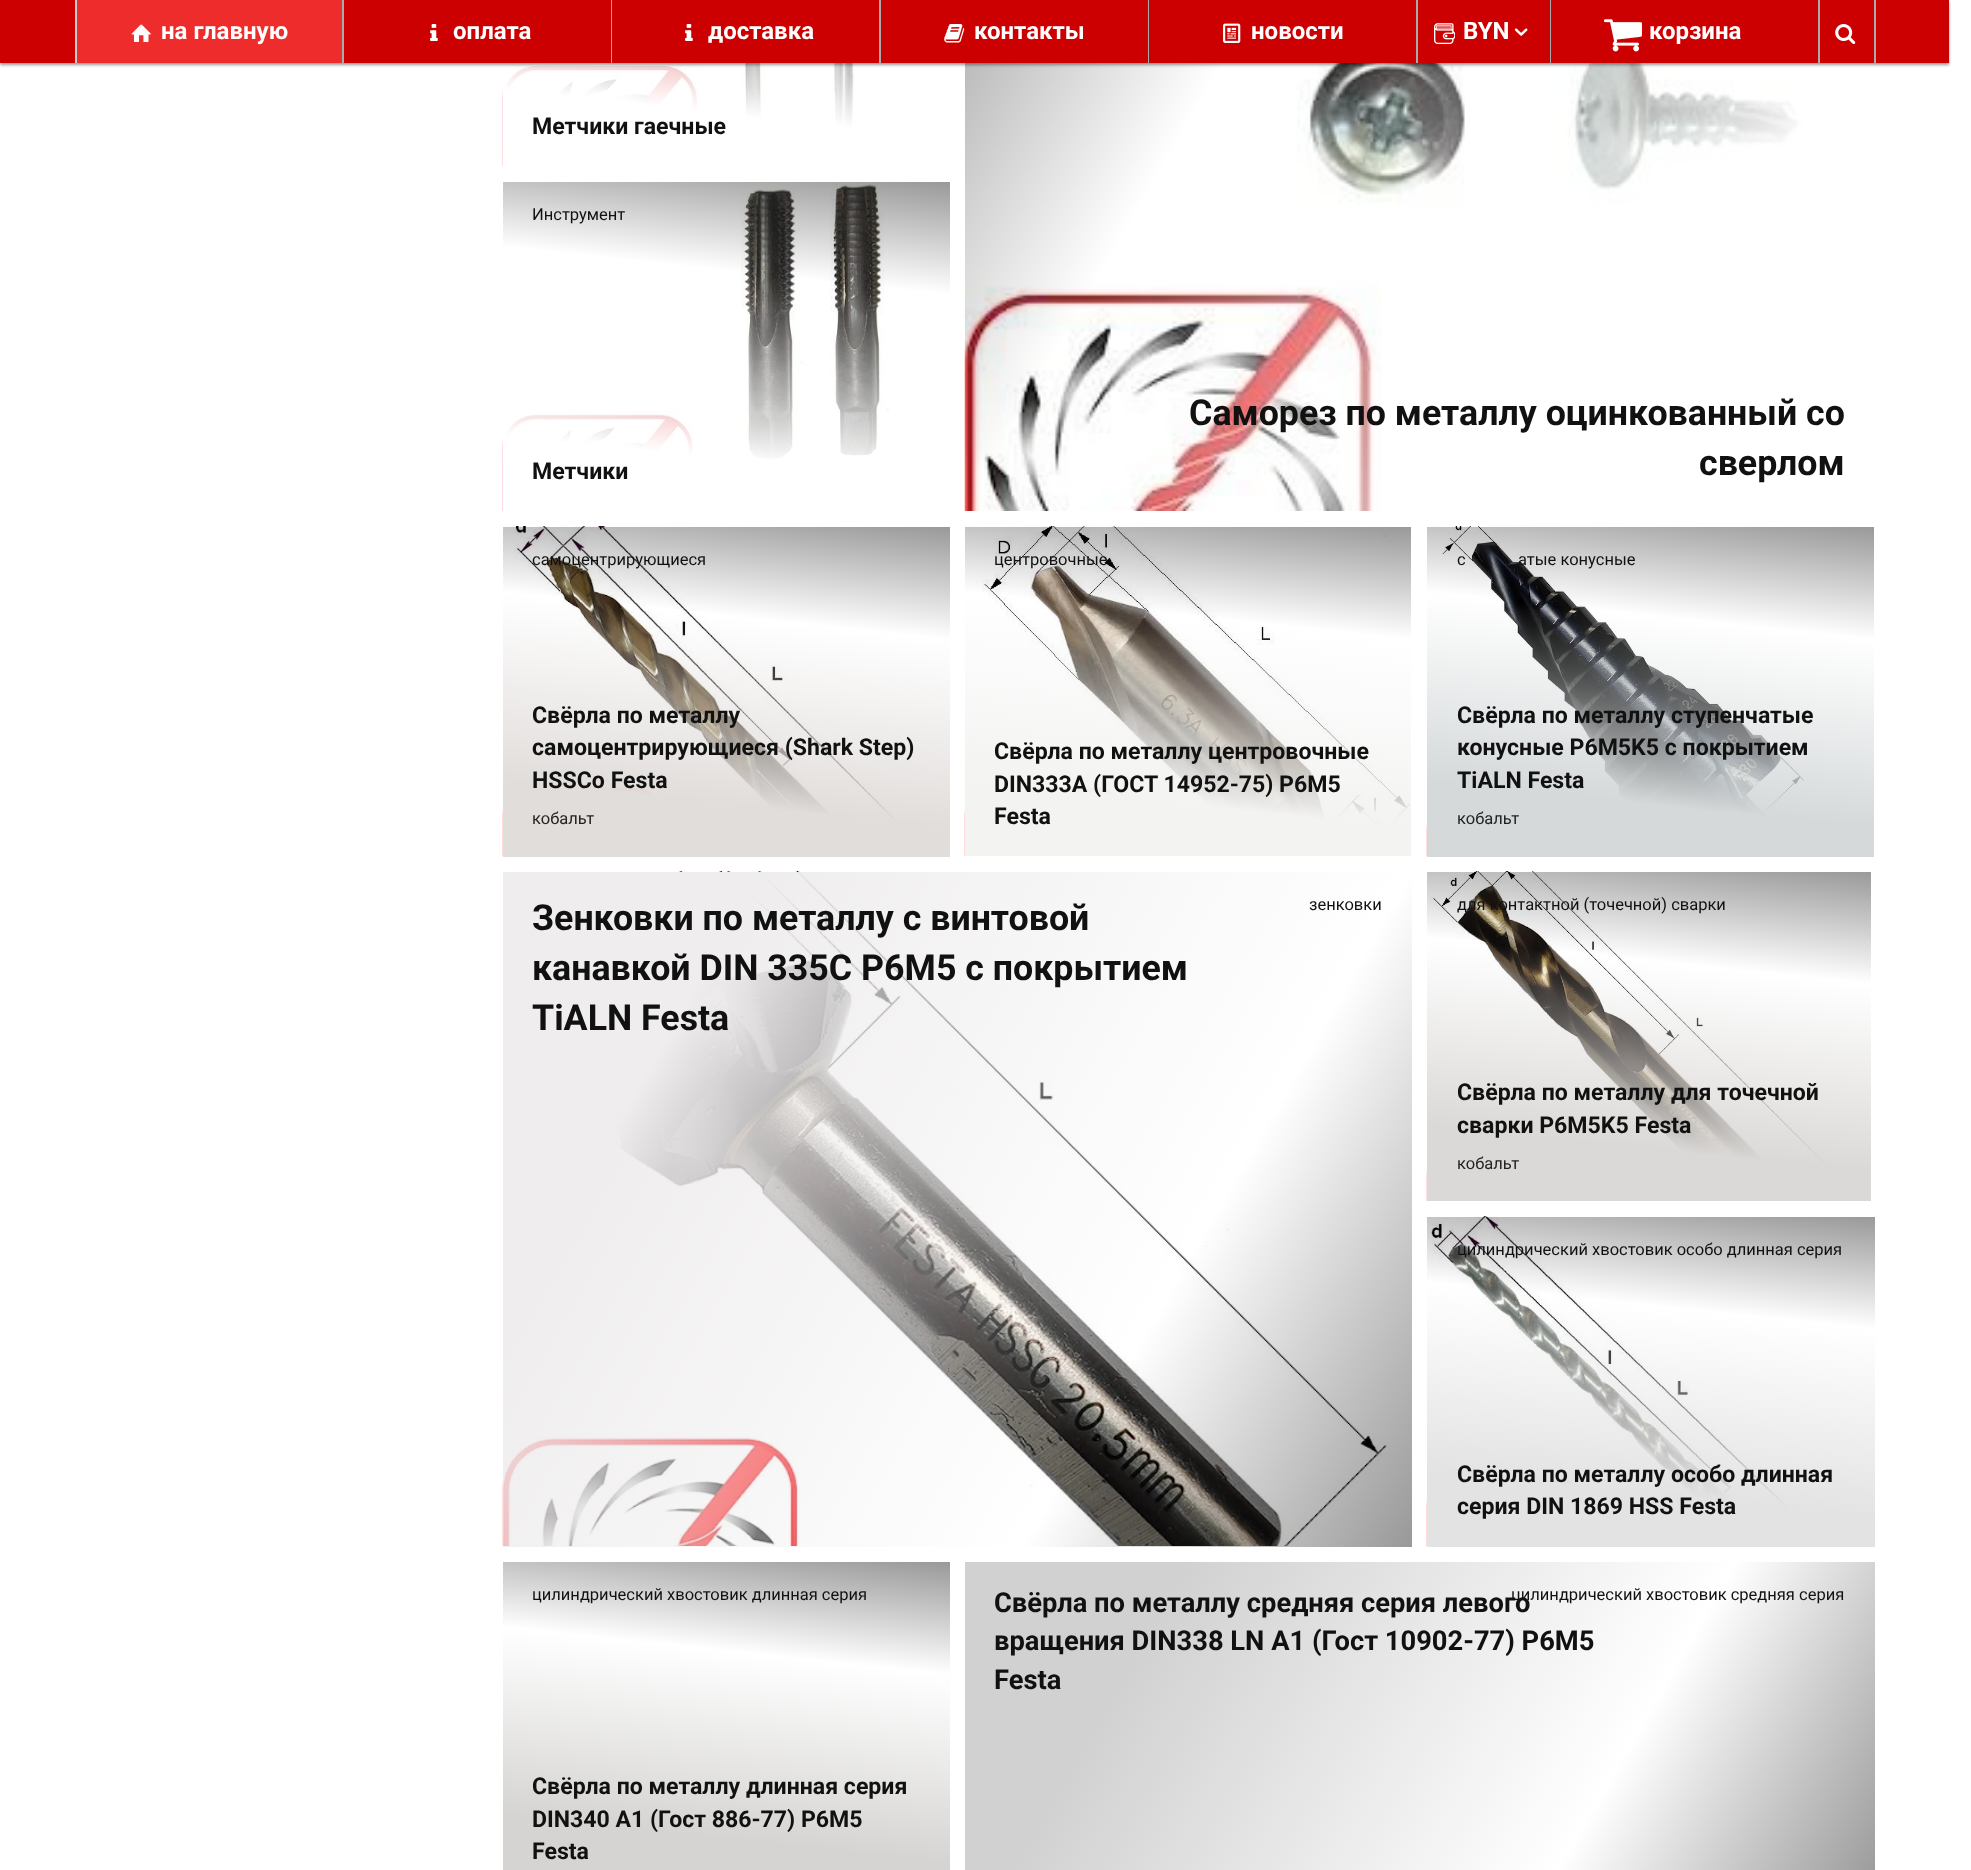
async function draw(canvas) {
	canvas.width = 1971;
	canvas.height = 1870;
	const c = canvas.getContext('2d');
	c.miterLimit = 4;
	c.fontKerning = 'normal';
	async function loadImage(src) {
		const img = new Image();
		img.src = src;
		await img.decode();
		return img;
	}
	let gradient;

	c.fillStyle = '#fff';
	c.fillRect(0, 0, 1971, 1870);
	c.drawImage(await loadImage('img9.png'), 502, 63, 353, 103);
	gradient = c.createLinearGradient(706, 188, 746, -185);
	gradient.addColorStop(0, '#fff');
	gradient.addColorStop(0.2, '#fff');
	gradient.addColorStop(0.7, '#ffffff00');
	gradient.addColorStop(0.7, '#00000000');
	gradient.addColorStop(1, '#00000066');
	c.fillStyle = gradient;
	c.fillRect(503, 63, 352, 103);
	c.drawImage(await loadImage('img11.png'), 964, 63, 846, 448);
	gradient = c.createLinearGradient(1907, 456, 932, -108);
	gradient.addColorStop(0, '#fff');
	gradient.addColorStop(0.2, '#fff');
	gradient.addColorStop(0.7, '#ffffff00');
	gradient.addColorStop(0.7, '#00000000');
	gradient.addColorStop(1, '#00000066');
	c.fillStyle = gradient;
	c.fillRect(965, 63, 845, 448);
	c.fillStyle = '#00000066';
	c.filter = 'blur(1.5px)';
	c.beginPath();
	c.rect(0, 2, 1949, 63);
	c.fill();
	c.filter = 'none';
	for (const [x, y, w, h, color] of [
		[0, 0, 1949, 63, '#c00'],
		[77, 0, 265, 63, '#ef2c2c'],
		[342, 0, 2, 63, '#aaa'],
		[75, 0, 2, 63, '#ccc'],
	]) {
		c.fillStyle = color;
		c.fillRect(x, y, w, h);
	}
	c.drawImage(await loadImage('img1.png'), 131, 24, 20, 18);
	c.font = 'bold 24px Roboto';
	c.fillStyle = '#fff';
	c.fillText('на главную', 161, 39);
	c.fillStyle = '#aaa';
	c.fillRect(611, 0, 1, 63);
	c.drawImage(await loadImage('img2.png'), 430, 24, 8, 17);
	c.fillStyle = '#fff';
	c.fillText('оплата', 453, 39);
	c.fillStyle = '#aaa';
	c.fillRect(879, 0, 2, 63);
	c.drawImage(await loadImage('img2.png'), 685, 24, 8, 17);
	c.fillStyle = '#fff';
	c.fillText('доставка', 708, 39);
	c.fillStyle = '#aaa';
	c.fillRect(1148, 0, 1, 63);
	c.drawImage(await loadImage('img3.png'), 944, 24, 21, 19);
	c.fillStyle = '#fff';
	c.fillText('контакты', 974, 39);
	c.fillStyle = '#aaa';
	c.fillRect(1416, 0, 2, 63);
	c.drawImage(await loadImage('img4.png'), 1223, 23, 18, 20);
	c.fillStyle = '#fff';
	c.fillText('новости', 1251, 39);
	c.fillStyle = '#aaa';
	c.fillRect(1550, 0, 1, 63);
	c.drawImage(await loadImage('img5.png'), 1434, 23, 21, 21);
	c.fillStyle = '#fff';
	c.fillText('BYN', 1463, 39);
	c.drawImage(await loadImage('img6.png'), 1514, 28, 14, 8);
	c.fillStyle = '#aaa';
	c.fillRect(1818, 0, 2, 63);
	c.drawImage(await loadImage('img7.png'), 1604, 19, 38, 33);
	c.fillStyle = '#fff';
	c.fillText('корзина', 1649, 39);
	c.fillStyle = '#aaa';
	c.fillRect(1874, 0, 2, 63);
	c.drawImage(await loadImage('img8.png'), 1835, 24, 21, 20);
	c.font = 'bold 23.1px Roboto';
	c.fillStyle = '#111';
	c.fillText('Метчики гаечные', 532, 134);
	c.drawImage(await loadImage('img10.png'), 502, 181, 388, 330);
	gradient = c.createLinearGradient(706, 533, 746, 160);
	gradient.addColorStop(0, '#fff');
	gradient.addColorStop(0.2, '#fff');
	gradient.addColorStop(0.7, '#ffffff00');
	gradient.addColorStop(0.7, '#00000000');
	gradient.addColorStop(1, '#00000066');
	c.fillStyle = gradient;
	c.fillRect(503, 182, 447, 329);
	c.font = '16.5px Roboto';
	c.fillStyle = '#111';
	c.fillText('Инструмент', 532, 220);
	c.font = 'bold 23.1px Roboto';
	c.fillText('Метчики', 532, 479);
	c.font = 'bold 35.75px Roboto';
	c.fillText('Саморез по металлу оцинкованный со', 1189, 425);
	c.fillText('сверлом', 1699, 475);
	c.drawImage(await loadImage('img12.png'), 502, 526, 438, 330);
	gradient = c.createLinearGradient(706, 878, 746, 505);
	gradient.addColorStop(0, '#e1dddb');
	gradient.addColorStop(0.2, '#e1dddb');
	gradient.addColorStop(0.7, '#e1dddb00');
	gradient.addColorStop(0.7, '#00000000');
	gradient.addColorStop(1, '#00000066');
	c.fillStyle = gradient;
	c.fillRect(503, 527, 447, 330);
	c.font = '16.5px Roboto';
	c.fillStyle = '#111';
	c.fillText('самоцентрирующиеся', 532, 565);
	c.font = 'bold 23.1px Roboto';
	for (const [text, x, y] of [
		['Свёрла по металлу', 532, 723],
		['самоцентрирующиеся (Shark Step)', 532, 755],
		['HSSCo Festa', 532, 788],
	]) {
		c.fillText(text, x, y);
	}
	c.font = '16.5px Roboto';
	c.fillStyle = '#222';
	c.fillText('кобальт', 532, 824);
	c.drawImage(await loadImage('img13.png'), 964, 526, 447, 330);
	c.fillStyle = '#111';
	c.fillText('центровочные', 994, 565);
	c.font = 'bold 23.1px Roboto';
	for (const [text, x, y] of [
		['Свёрла по металлу центровочные', 994, 759],
		['DIN333A (ГОСТ 14952-75) Р6M5', 994, 792],
		['Festa', 994, 824],
	]) {
		c.fillText(text, x, y);
	}
	c.drawImage(await loadImage('img14.png'), 1426, 526, 378, 330);
	gradient = c.createLinearGradient(1630, 878, 1670, 505);
	gradient.addColorStop(0, '#d5d9da');
	gradient.addColorStop(0.2, '#d5d9da');
	gradient.addColorStop(0.7, '#d5d9da00');
	gradient.addColorStop(0.7, '#00000000');
	gradient.addColorStop(1, '#00000066');
	c.fillStyle = gradient;
	c.fillRect(1427, 527, 447, 330);
	c.font = '16.5px Roboto';
	c.fillStyle = '#111';
	c.fillText('с', 1457, 565);
	c.fillText('атые конусные', 1518, 565);
	c.font = 'bold 23.1px Roboto';
	for (const [text, x, y] of [
		['Свёрла по металлу ступенчатые', 1457, 723],
		['конусные Р6M5K5 с покрытием', 1457, 755],
		['TiALN Festa', 1457, 788],
	]) {
		c.fillText(text, x, y);
	}
	c.font = '16.5px Roboto';
	c.fillStyle = '#222';
	c.fillText('кобальт', 1457, 824);
	c.drawImage(await loadImage('img15.png'), 502, 871, 887, 675);
	gradient = c.createLinearGradient(470, 928, 1444, 1490);
	gradient.addColorStop(0, '#efedee');
	gradient.addColorStop(0.2, '#efedee');
	gradient.addColorStop(0.7, '#efedee00');
	gradient.addColorStop(0.7, '#00000000');
	gradient.addColorStop(1, '#00000066');
	c.fillStyle = gradient;
	c.fillRect(503, 872, 909, 675);
	c.font = 'bold 35.75px Roboto';
	c.fillStyle = '#111';
	for (const [text, x, y] of [
		['Зенковки по металлу с винтовой', 532, 930],
		['канавкой DIN 335C Р6M5 с покрытием', 532, 980],
		['TiALN Festa', 532, 1030],
	]) {
		c.fillText(text, x, y);
	}
	c.font = '16.5px Roboto';
	c.fillText('зенковки', 1309, 910);
	c.drawImage(await loadImage('img16.png'), 1426, 871, 445, 330);
	c.fillText('для контактной (точечной) сварки', 1457, 910);
	c.font = 'bold 23.1px Roboto';
	c.fillText('Свёрла по металлу для точечной', 1457, 1100);
	c.fillText('сварки P6M5K5 Festa', 1457, 1133);
	c.font = '16.5px Roboto';
	c.fillStyle = '#222';
	c.fillText('кобальт', 1457, 1169);
	c.drawImage(await loadImage('img17.png'), 1426, 1216, 403, 330);
	gradient = c.createLinearGradient(1631, 1568, 1670, 1195);
	gradient.addColorStop(0, '#e4e3e3');
	gradient.addColorStop(0.2, '#e4e3e3');
	gradient.addColorStop(0.7, '#e4e3e300');
	gradient.addColorStop(0.7, '#00000000');
	gradient.addColorStop(1, '#00000066');
	c.fillStyle = gradient;
	c.fillRect(1427, 1217, 448, 330);
	c.fillStyle = '#111';
	c.fillText('цилиндрический хвостовик особо длинная серия', 1457, 1255);
	c.font = 'bold 23.1px Roboto';
	c.fillText('Свёрла по металлу особо длинная', 1457, 1482);
	c.fillText('серия DIN 1869 HSS Festa', 1457, 1514);
	gradient = c.createLinearGradient(706, 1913, 746, 1540);
	gradient.addColorStop(0, '#d5d4d2');
	gradient.addColorStop(0.2, '#d5d4d2');
	gradient.addColorStop(0.7, '#fff');
	gradient.addColorStop(1, '#999');
	c.fillStyle = gradient;
	c.fillRect(503, 1562, 447, 308);
	c.font = '16.5px Roboto';
	c.fillStyle = '#111';
	c.fillText('цилиндрический хвостовик длинная серия', 532, 1600);
	c.font = 'bold 23.1px Roboto';
	for (const [text, x, y] of [
		['Свёрла по металлу длинная серия', 532, 1794],
		['DIN340 А1 (Гост 886-77) Р6M5', 532, 1827],
		['Festa', 532, 1859],
	]) {
		c.fillText(text, x, y);
	}
	gradient = c.createLinearGradient(1007, 1488, 1833, 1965);
	gradient.addColorStop(0, '#d2d1d1');
	gradient.addColorStop(0.2, '#d2d1d1');
	gradient.addColorStop(0.7, '#fff');
	gradient.addColorStop(1, '#999');
	c.fillStyle = gradient;
	c.fillRect(965, 1562, 910, 308);
	c.font = '16.5px Roboto';
	c.fillStyle = '#111';
	c.fillText('цилиндрический хвостовик средняя серия', 1511, 1600);
	c.font = 'bold 27.3px Roboto';
	for (const [text, x, y] of [
		['Свёрла по металлу средняя серия левого', 994, 1612],
		['вращения DIN338 LN А1 (Гост 10902-77) Р6M5', 994, 1650],
		['Festa', 994, 1689],
	]) {
		c.fillText(text, x, y);
	}
}

draw(document.querySelector('canvas'));
